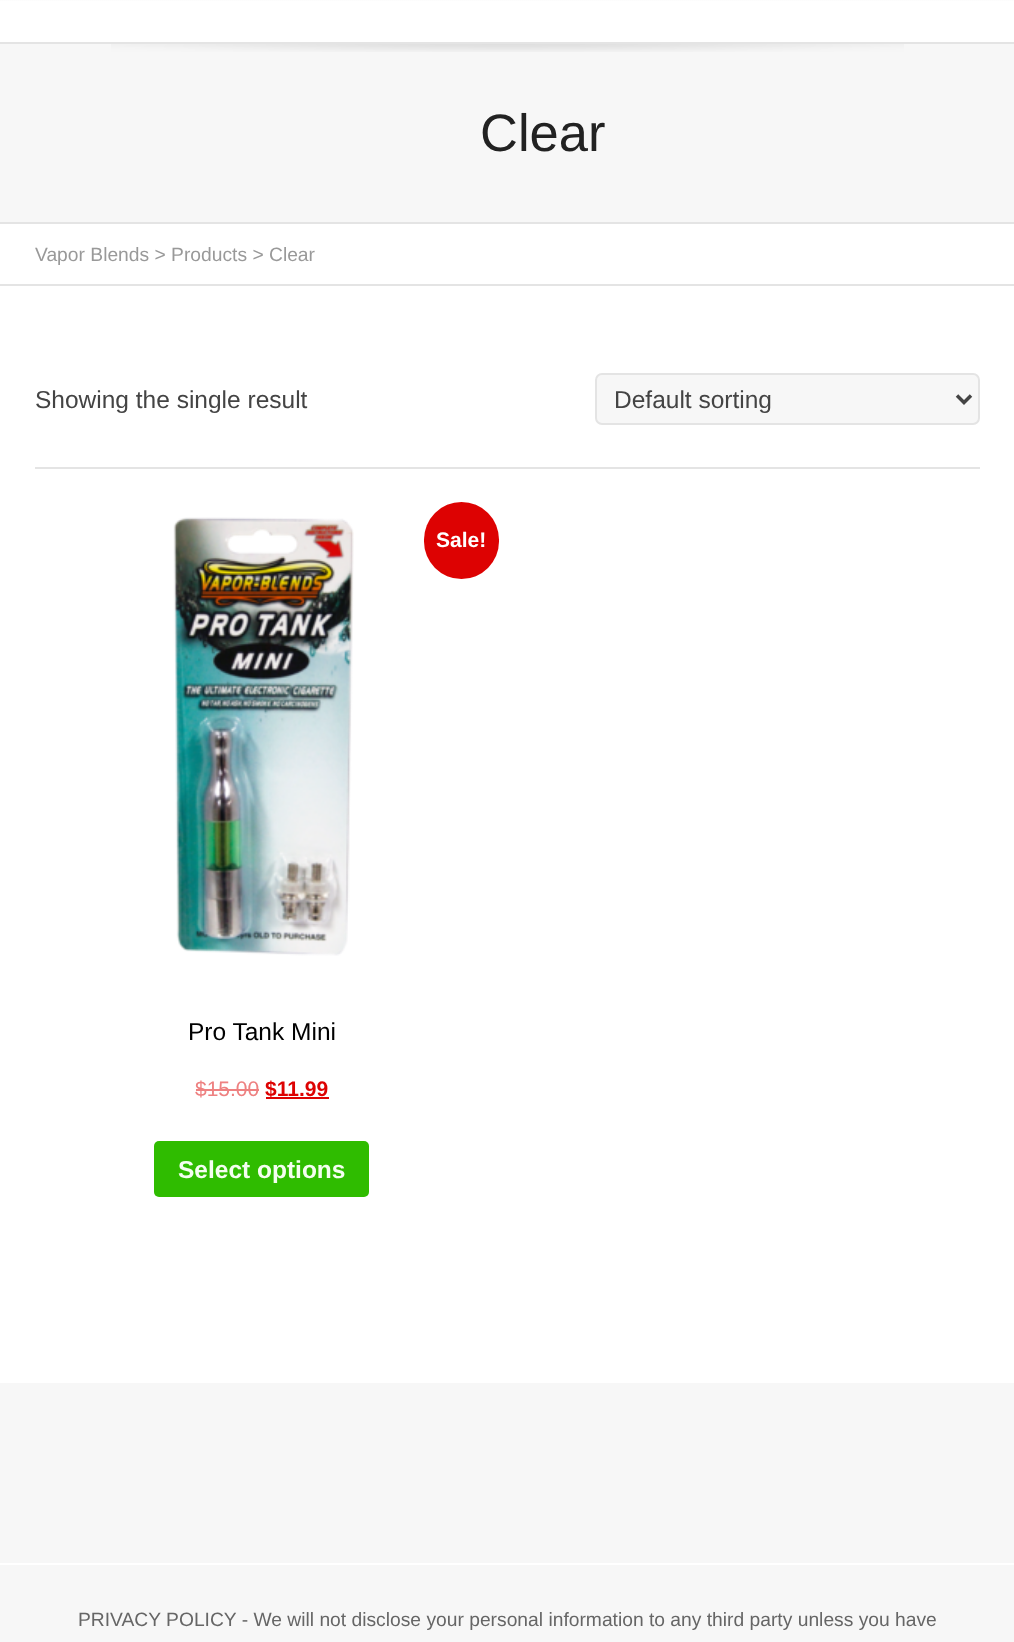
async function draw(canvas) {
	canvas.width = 1014;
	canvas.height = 1642;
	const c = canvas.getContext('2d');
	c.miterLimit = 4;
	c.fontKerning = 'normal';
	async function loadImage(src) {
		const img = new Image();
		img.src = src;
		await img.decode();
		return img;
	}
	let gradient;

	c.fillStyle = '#fff';
	c.fillRect(0, 0, 1014, 1642);
	gradient = c.createLinearGradient(508, -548, 508, 42);
	gradient.addColorStop(0, '#dbdbdb');
	gradient.addColorStop(1, '#fff');
	c.fillStyle = gradient;
	c.fillRect(0, 0, 1014, 1);
	c.fillStyle = '#e4e4e4';
	c.fillRect(0, 42, 1014, 2);
	c.fillStyle = '#f7f7f7';
	c.fillRect(0, 44, 1014, 178);
	c.drawImage(await loadImage('img1.png'), 111, 44, 793, 8);
	c.fillStyle = '#e4e4e4';
	c.fillRect(0, 222, 1014, 2);
	c.font = '52.5px Liberation Sans';
	c.fillStyle = '#222';
	c.fillText('Clear', 480, 151);
	c.fillStyle = '#e4e4e4';
	c.fillRect(0, 284, 1014, 2);
	c.font = '19.25px Liberation Sans';
	c.fillStyle = '#999';
	c.fillText('Vapor Blends > Products > Clear', 35, 261);
	c.font = '24.5px Liberation Sans';
	c.fillStyle = '#444';
	c.fillText('Showing the single result', 35, 408);
	c.fillStyle = '#f7f7f7';
	c.beginPath();
	c.roundRect(596, 374, 383, 50, 6);
	c.fill();
	c.strokeStyle = '#e4e4e4';
	c.lineWidth = 2;
	c.stroke();
	c.beginPath();
	c.moveTo(957, 395.5);
	c.lineTo(964, 402.5);
	c.lineTo(971, 395.5);
	c.strokeStyle = '#444';
	c.lineWidth = 3.5;
	c.stroke();
	c.fillStyle = '#444';
	c.fillText('Default sorting', 614, 408);
	c.fillStyle = '#e4e4e4';
	c.fillRect(35, 467, 945, 2);
	c.drawImage(await loadImage('img2.png'), 173, 517, 181, 439);
	c.fillStyle = '#dd0202';
	c.beginPath();
	c.roundRect(424, 502, 75, 77, 37.5);
	c.fill();
	c.font = 'bold 21px Liberation Sans';
	c.fillStyle = '#fff';
	c.fillText('Sale!', 436, 547);
	c.font = '24.5px Liberation Sans';
	c.fillStyle = '#000';
	c.fillText('Pro Tank Mini', 188, 1040);
	c.font = '21px Liberation Sans';
	c.fillStyle = '#ee8181';
	c.fillText('$15.00', 195, 1096);
	c.fillRect(196, 1089, 63, 2);
	c.fillStyle = '#dd0202';
	c.fillRect(266, 1097, 63, 2);
	c.font = 'bold 21px Liberation Sans';
	c.fillText('$11.99', 265, 1096);
	c.fillStyle = '#2fbc00';
	c.beginPath();
	c.roundRect(154, 1141, 215, 56, 5);
	c.fill();
	c.font = 'bold 24.5px Liberation Sans';
	c.fillStyle = '#f4fef0';
	c.fillText('Select options', 178, 1178);
	c.fillStyle = '#f7f7f7';
	c.fillRect(0, 1383, 1014, 180);
	c.fillRect(0, 1565, 1014, 77);
	c.font = '19.25px Liberation Sans';
	c.fillStyle = '#666';
	c.fillText('PRIVACY POLICY - We will not disclose your personal information to any third party unless you have', 78, 1626);
}

draw(document.querySelector('canvas'));
